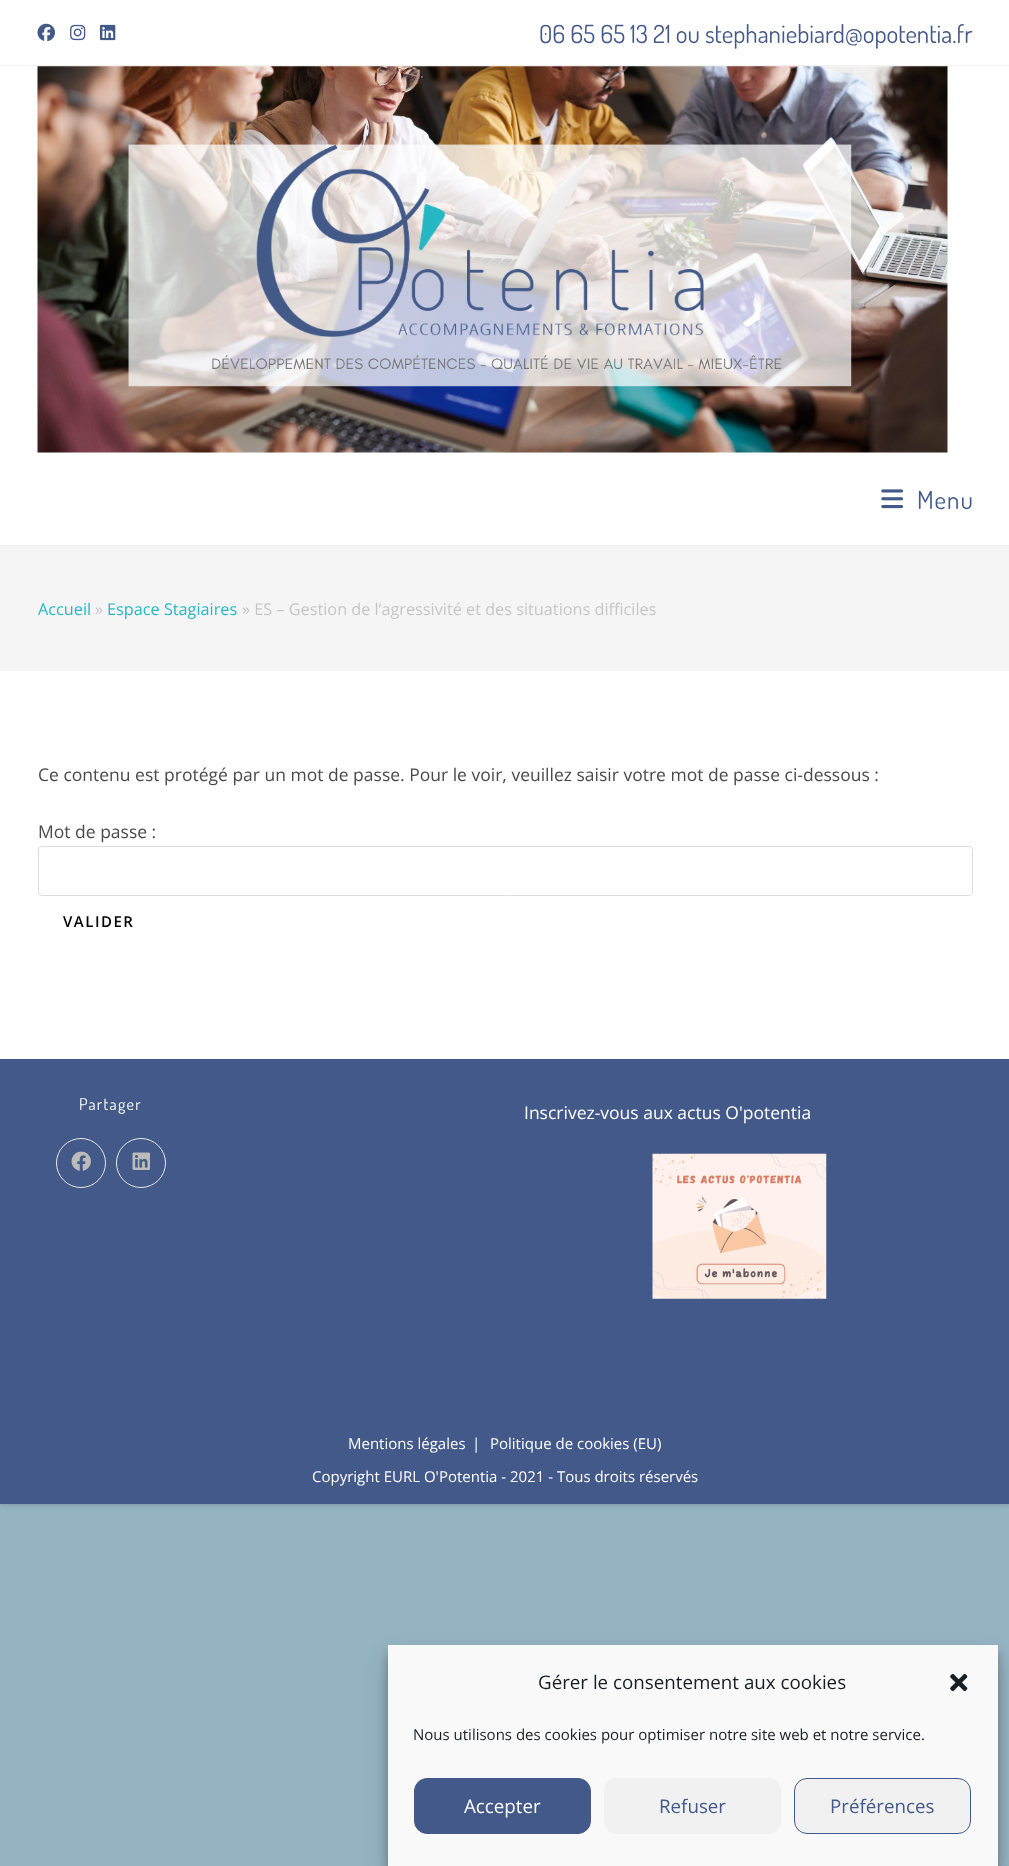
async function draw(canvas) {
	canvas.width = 1009;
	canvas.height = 1866;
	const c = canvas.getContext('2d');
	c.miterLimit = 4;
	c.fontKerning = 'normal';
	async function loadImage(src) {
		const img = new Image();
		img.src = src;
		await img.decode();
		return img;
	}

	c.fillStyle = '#95b4c2';
	c.fillRect(0, 0, 1009, 1866);
	c.fillStyle = '#00000026';
	c.filter = 'blur(2.5px)';
	c.beginPath();
	c.rect(0, 1, 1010, 1504);
	c.fill();
	c.filter = 'none';
	c.fillStyle = '#fff';
	c.fillRect(0, 0, 1009, 1059);
	c.fillStyle = '#f1f1f1';
	c.fillRect(0, 65, 1009, 1);
	c.drawImage(await loadImage('img1.png'), 37, 23, 18, 19);
	c.drawImage(await loadImage('img2.png'), 70, 24, 16, 17);
	c.drawImage(await loadImage('img3.png'), 100, 24, 16, 17);
	c.font = '25px Dosis';
	c.fillStyle = '#435989';
	c.fillText('06 65 65 13 21 ou stephaniebiard@opotentia.fr', 539, 43);
	c.fillStyle = '#f1f1f1';
	c.fillRect(0, 545, 1009, 1);
	c.drawImage(await loadImage('img4.png'), 37, 66, 911, 387);
	c.drawImage(await loadImage('img5.png'), 881, 489, 23, 20);
	c.letterSpacing = '1px';
	c.fillStyle = '#435989';
	c.fillText('Menu', 917, 509);
	c.fillStyle = '#f5f5f5';
	c.fillRect(0, 546, 1009, 125);
	c.letterSpacing = '0px';
	c.font = '16.25px Open Sans';
	c.fillStyle = '#25b9c5';
	c.fillText('Accueil', 38, 615);
	c.fillStyle = '#c6c6c6';
	c.fillText('»', 95, 615);
	c.fillStyle = '#25b9c5';
	c.fillText('Espace Stagiaires', 107, 615);
	c.fillStyle = '#c6c6c6';
	c.fillText('» ES – Gestion de l’agressivité et des situations difficiles', 242, 615);
	c.font = '17.5px Open Sans';
	c.fillStyle = '#4a4a4a';
	c.fillText('Ce contenu est protégé par un mot de passe. Pour le voir, veuillez saisir votre mot de passe ci-dessous :', 38, 781);
	c.fillText('Mot de passe :', 38, 838);
	c.beginPath();
	c.roundRect(38.5, 846.5, 934, 49, 3.5);
	c.strokeStyle = '#ddd';
	c.stroke();
	c.letterSpacing = '1.5px';
	c.font = '600 15px Open Sans';
	c.fillStyle = '#000';
	c.fillText('VALIDER', 63, 927);
	c.fillStyle = '#435989';
	c.fillRect(0, 1059, 1009, 445);
	c.letterSpacing = '1.25px';
	c.font = '16.25px Dosis';
	c.fillStyle = '#fff';
	c.fillText('Partager', 79, 1110);
	c.beginPath();
	c.arc(81, 1163, 24.5, 0, 2 * Math.PI);
	c.strokeStyle = '#e9e9e9';
	c.stroke();
	c.drawImage(await loadImage('img6.png'), 71, 1151, 20, 20);
	c.beginPath();
	c.arc(141, 1163, 24.5, 0, 2 * Math.PI);
	c.stroke();
	c.drawImage(await loadImage('img7.png'), 132, 1152, 18, 18);
	c.letterSpacing = '0px';
	c.font = '17.5px Open Sans';
	c.fillText('Inscrivez-vous aux actus O\'potentia', 524, 1119);
	c.drawImage(await loadImage('img8.png'), 652, 1153, 175, 146);
	c.font = '15px Open Sans';
	for (const [text, x, y] of [
		['Mentions légales', 348, 1449],
		['|', 472, 1449],
		['Politique de cookies (EU)', 490, 1449],
		['Copyright EURL O\'Potentia - 2021 - Tous droits réservés', 312, 1482],
	]) {
		c.fillText(text, x, y);
	}
	c.fillStyle = '#0000003b';
	c.filter = 'blur(4px)';
	c.beginPath();
	c.rect(388, 1653, 610, 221);
	c.fill();
	c.filter = 'none';
	c.fillStyle = '#00000030';
	c.filter = 'blur(12.5px)';
	c.beginPath();
	c.rect(388, 1658, 610, 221);
	c.fill();
	c.filter = 'none';
	c.fillStyle = '#f9f9f9';
	c.fillRect(388, 1645, 610, 221);
	c.font = '18.75px Open Sans';
	c.fillStyle = '#191e23';
	c.fillText('Gérer le consentement aux cookies', 538, 1689);
	c.drawImage(await loadImage('img9.png'), 950, 1673, 18, 19);
	c.font = '15px Open Sans';
	c.fillText('Nous utilisons des cookies pour optimiser notre site web et notre service.', 413, 1740);
	c.fillStyle = '#435989';
	c.beginPath();
	c.roundRect(414.5, 1778.5, 176, 55, 12.5);
	c.fill();
	c.strokeStyle = '#435989';
	c.stroke();
	c.font = '18.75px Open Sans';
	c.fillStyle = '#fff';
	c.fillText('Accepter', 464, 1813);
	c.fillStyle = '#f1f1f1';
	c.beginPath();
	c.roundRect(604, 1778, 177, 56, 13);
	c.fill();
	c.fillStyle = '#435989';
	c.fillText('Refuser', 659, 1813);
	c.fillStyle = '#f1f1f1';
	c.beginPath();
	c.roundRect(794.5, 1778.5, 176, 55, 12.5);
	c.fill();
	c.stroke();
	c.fillStyle = '#435989';
	c.fillText('Préférences', 830, 1813);
}

draw(document.querySelector('canvas'));
